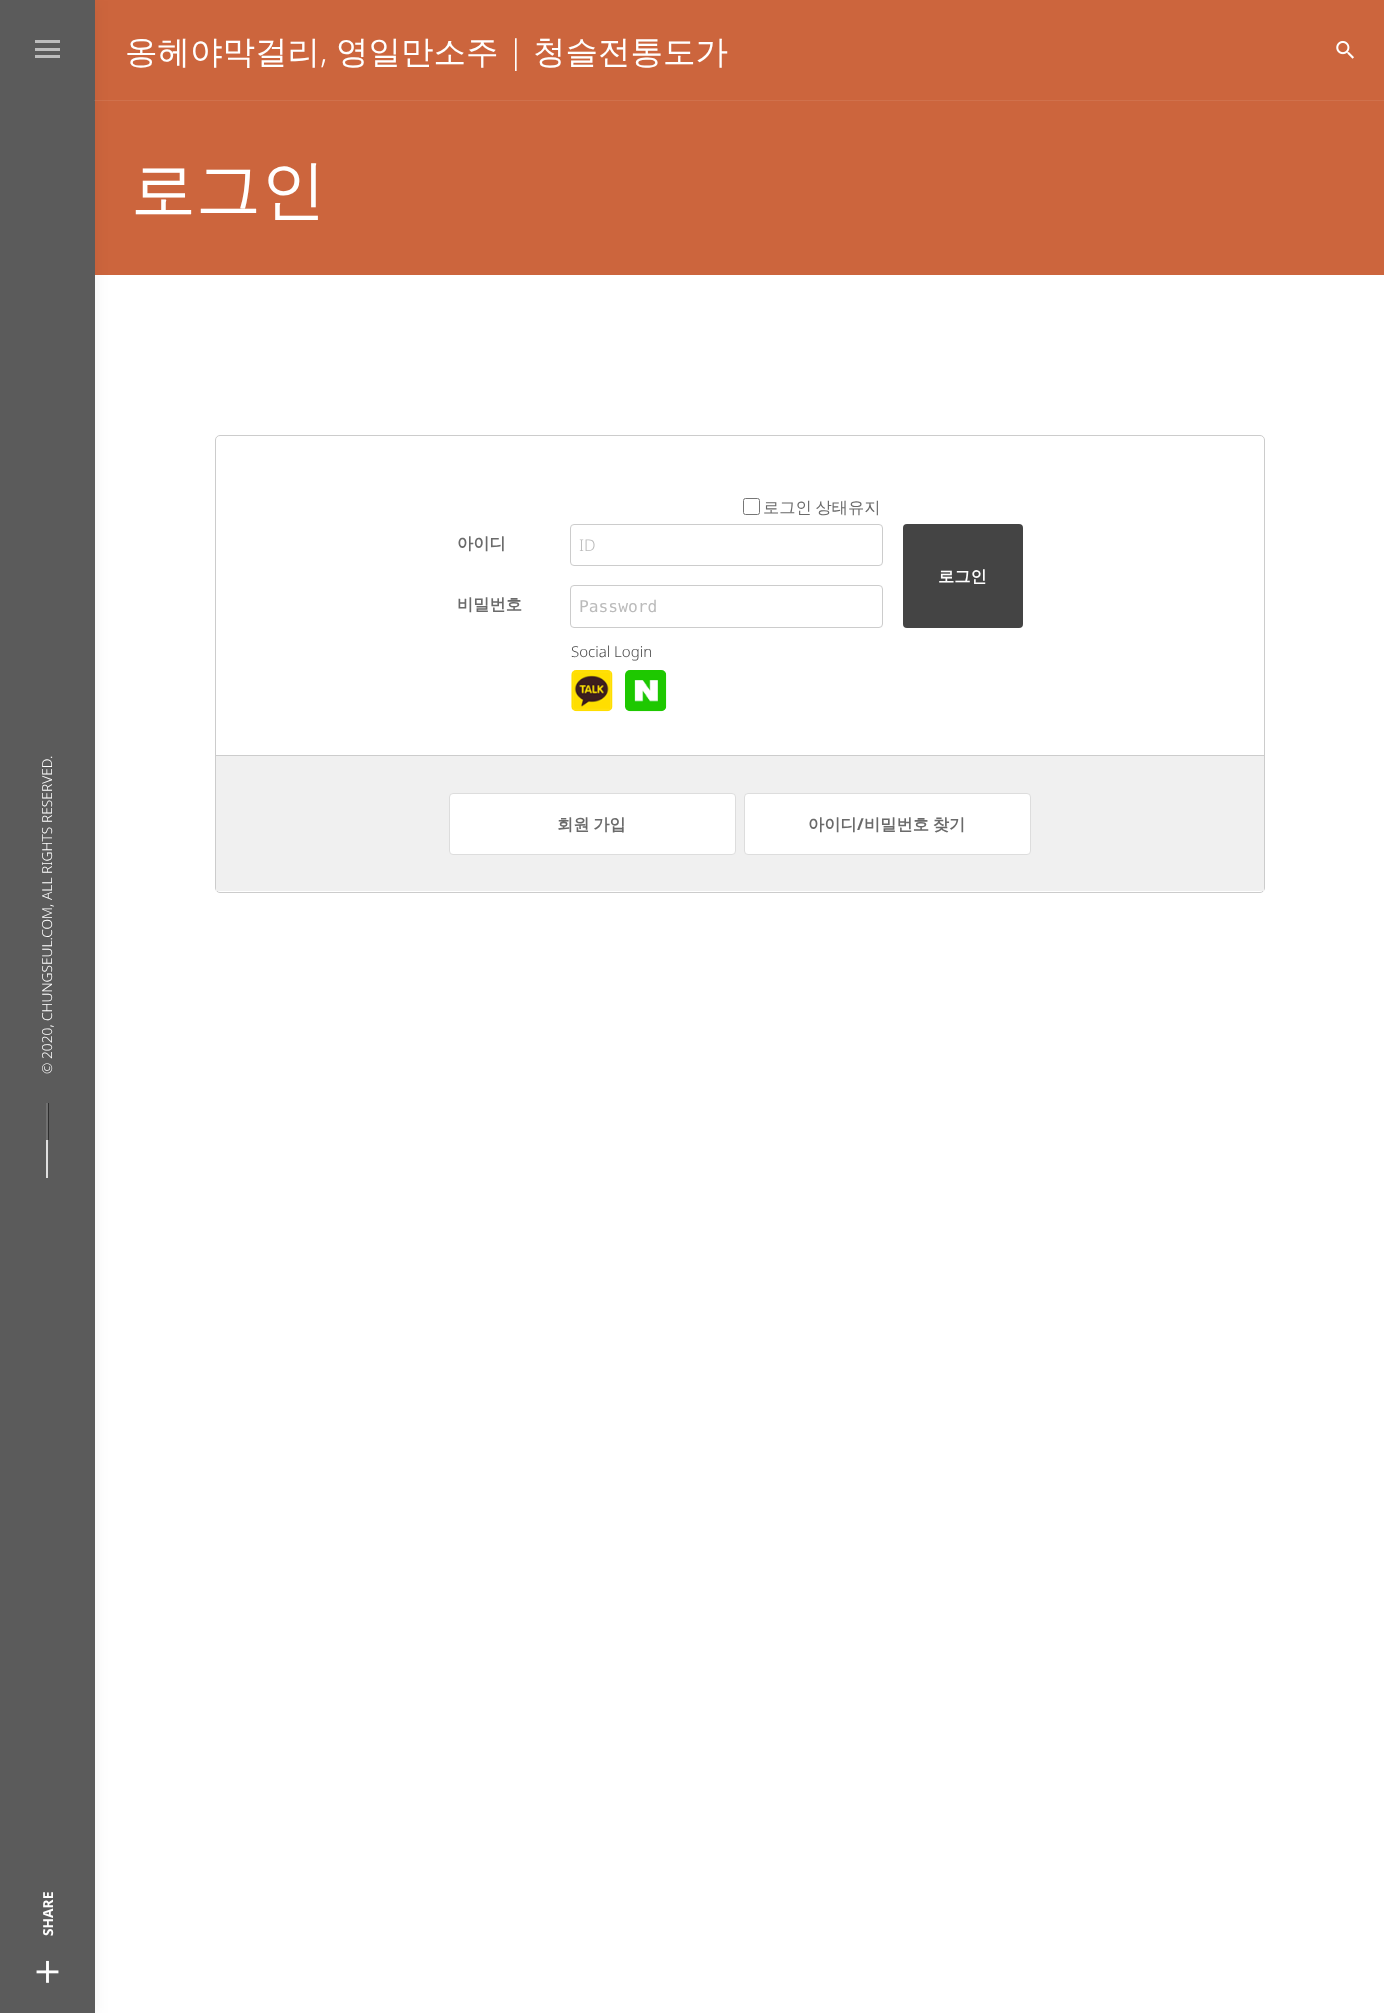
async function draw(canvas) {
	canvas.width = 1384;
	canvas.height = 2013;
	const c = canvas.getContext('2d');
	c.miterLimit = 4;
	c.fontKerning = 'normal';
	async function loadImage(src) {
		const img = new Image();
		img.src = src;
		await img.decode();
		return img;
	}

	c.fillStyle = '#fff';
	c.fillRect(0, 0, 1384, 2013);
	c.fillStyle = '#cc653d';
	c.fillRect(95, 0, 1289, 275);
	c.fillStyle = '#0000000f';
	c.filter = 'blur(7.5px)';
	c.beginPath();
	c.rect(0, 1, 95, 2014);
	c.fill();
	c.filter = 'none';
	for (const [x, y, w, h, color] of [
		[0, 0, 95, 2013, '#5b5b5b'],
		[35, 40, 25, 3, '#bdbdbd'],
		[35, 55, 25, 3, '#bdbdbd'],
		[35, 48, 25, 3, '#bdbdbd'],
		[94, 100, 1290, 1, '#ffffff14'],
	]) {
		c.fillStyle = color;
		c.fillRect(x, y, w, h);
	}
	c.font = '500 32.5px WenQuanYi Zen Hei';
	c.fillStyle = '#fff';
	c.fillText('옹헤야막걸리', 125, 63);
	c.font = '300 32.5px Noto Sans';
	c.fillText(',', 320, 63);
	c.font = '500 32.5px WenQuanYi Zen Hei';
	c.fillText('영일만소주', 336, 63);
	c.font = '300 32.5px Noto Sans';
	c.fillText('|', 507, 63);
	c.font = '500 32.5px WenQuanYi Zen Hei';
	c.fillText('청슬전통도가', 533, 63);
	c.drawImage(await loadImage('img1.png'), 1336, 40, 18, 19);
	c.font = '500 65px WenQuanYi Zen Hei';
	c.fillText('로그인', 131, 212);
	c.beginPath();
	c.roundRect(215.5, 435.5, 1049, 457, 4.5);
	c.strokeStyle = '#ccc';
	c.stroke();
	c.beginPath();
	c.roundRect(743.5, 498.5, 16, 16, 2);
	c.strokeStyle = '#767676';
	c.stroke();
	c.wordSpacing = '-1px';
	c.font = '500 16.25px WenQuanYi Zen Hei';
	c.fillStyle = '#6a6a6a';
	c.fillText('로그인 상태유지', 763, 513);
	c.wordSpacing = '0px';
	c.font = 'bold 16.25px WenQuanYi Zen Hei';
	c.fillText('아이디', 457, 549);
	c.beginPath();
	c.roundRect(570.5, 524.5, 312, 41, 3.5);
	c.strokeStyle = '#ccc';
	c.stroke();
	c.font = '300 16.25px Noto Sans';
	c.fillStyle = '#bbb';
	c.fillText('ID', 579, 551);
	c.font = 'bold 16.25px WenQuanYi Zen Hei';
	c.fillStyle = '#6a6a6a';
	c.fillText('비밀번호', 457, 610);
	c.beginPath();
	c.roundRect(570.5, 585.5, 312, 42, 3.5);
	c.stroke();
	c.font = '16.25px DejaVu Sans Mono';
	c.fillStyle = '#bbb';
	c.fillText('Password', 579, 612);
	c.fillStyle = '#444';
	c.beginPath();
	c.roundRect(903, 524, 120, 104, 4);
	c.fill();
	c.font = 'bold 16.25px WenQuanYi Zen Hei';
	c.fillStyle = '#fff';
	c.fillText('로그인', 938, 582);
	c.font = '300 15px Noto Sans';
	c.fillStyle = '#494949';
	c.fillText('Social Login', 571, 657);
	c.drawImage(await loadImage('img2.png'), 571, 670, 42, 42);
	c.drawImage(await loadImage('img3.png'), 625, 670, 42, 42);
	c.fillStyle = '#f0f0f0';
	c.fillRect(216, 756, 1048, 135);
	c.fillStyle = '#ccc';
	c.fillRect(216, 755, 1048, 1);
	c.fillStyle = '#fff';
	c.beginPath();
	c.roundRect(449.5, 793.5, 286, 61, 3.5);
	c.fill();
	c.strokeStyle = '#ddd';
	c.stroke();
	c.wordSpacing = '-1px';
	c.font = 'bold 16.25px WenQuanYi Zen Hei';
	c.fillStyle = '#6a6a6a';
	c.fillText('회원 가입', 557, 830);
	c.fillStyle = '#fff';
	c.beginPath();
	c.roundRect(744.5, 793.5, 286, 61, 3.5);
	c.fill();
	c.stroke();
	c.wordSpacing = '0px';
	c.fillStyle = '#6a6a6a';
	c.fillText('아이디', 808, 830);
	c.font = 'bold 16.25px Noto Sans';
	c.fillText('/', 857, 830);
	c.wordSpacing = '-1px';
	c.font = 'bold 16.25px WenQuanYi Zen Hei';
	c.fillText('비밀번호 찾기', 864, 830);
	c.fillStyle = '#2e2e2e';
	c.fillRect(48, 1103, 1, 37);
	c.wordSpacing = '0px';
	c.font = '300 13.75px Noto Sans';
	c.fillStyle = '#fff';
	c.save();
	c.translate(52, 900);
	c.rotate(-90 * Math.PI / 180);
	c.fillText('ALL RIGHTS RESERVED.', 0, 0);
	c.restore();
	c.save();
	c.translate(52, 1021);
	c.rotate(-90 * Math.PI / 180);
	c.fillText('CHUNGSEUL.COM,', 0, 0);
	c.restore();
	c.save();
	c.translate(52, 1074);
	c.rotate(-90 * Math.PI / 180);
	c.fillText('© 2020,', 0, 0);
	c.restore();
	c.fillStyle = '#e0e0e0';
	c.fillRect(46, 1140, 2, 38);
	c.fillStyle = '#707070';
	c.fillRect(46, 1103, 2, 37);
	c.font = 'bold 13.75px Noto Sans';
	c.fillStyle = '#fff';
	c.save();
	c.translate(53, 1936);
	c.rotate(-90 * Math.PI / 180);
	c.fillText('SHARE', 0, 0);
	c.restore();
	c.drawImage(await loadImage('img4.png'), 36, 1960, 23, 23);
}

draw(document.querySelector('canvas'));
